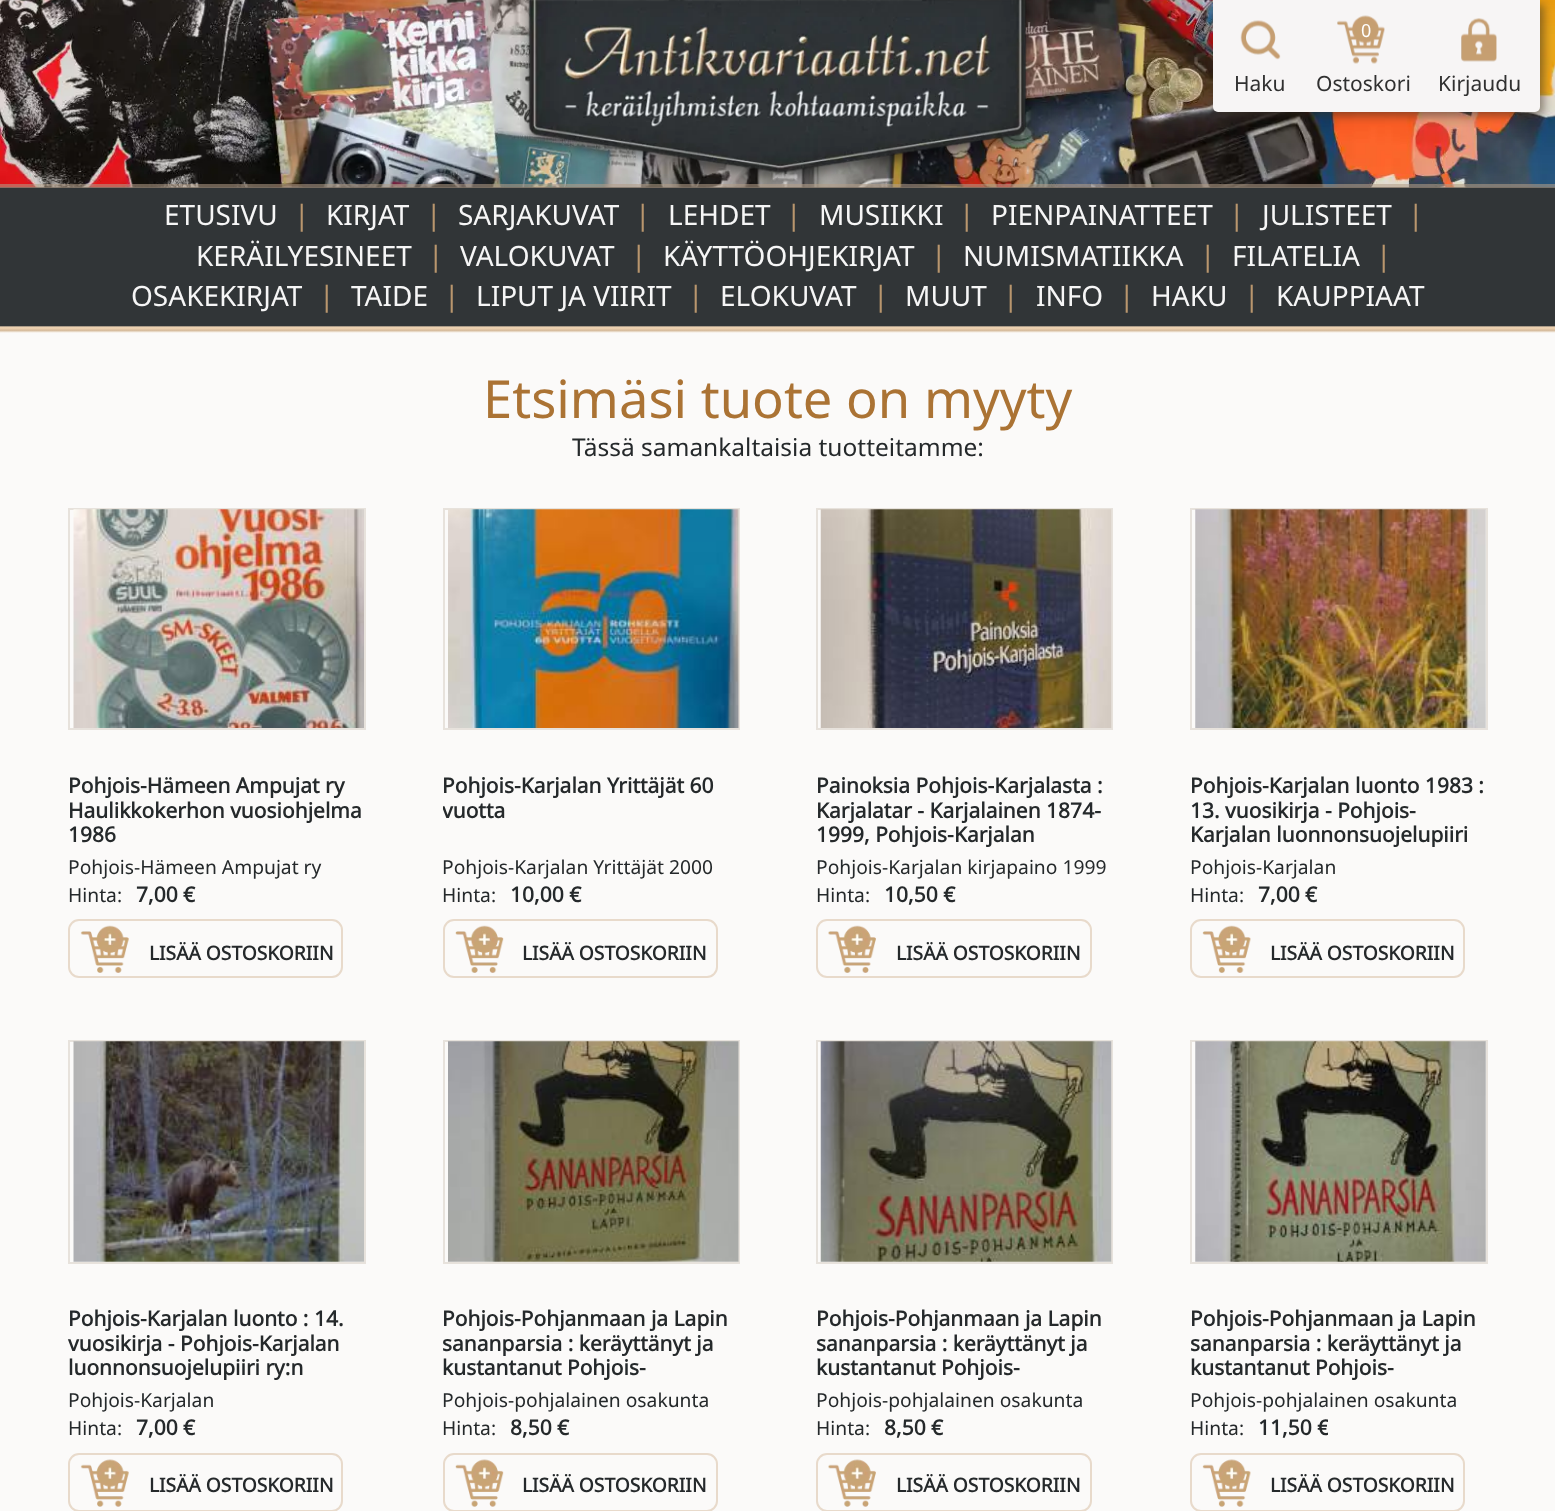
async function draw(canvas) {
	canvas.width = 1555;
	canvas.height = 1511;
	const c = canvas.getContext('2d');
	c.miterLimit = 4;
	c.fontKerning = 'normal';
	async function loadImage(src) {
		const img = new Image();
		img.src = src;
		await img.decode();
		return img;
	}
	let gradient;

	c.fillStyle = '#fbfaf9';
	c.fillRect(0, 0, 1555, 1511);
	c.fillStyle = '#313537';
	c.fillRect(0, 187, 1555, 139);
	c.drawImage(await loadImage('img4.png'), 0, 0, 1555, 188);
	c.fillStyle = '#382f218a';
	c.filter = 'blur(5px)';
	c.beginPath();
	c.roundRect(1216, 4, 328, 112, 5);
	c.fill();
	c.filter = 'none';
	c.fillStyle = '#f7f5f5';
	c.beginPath();
	c.roundRect(1213, 0, 327, 112, [0, 0, 5, 5]);
	c.fill();
	c.drawImage(await loadImage('img1.png'), 1240, 20, 41, 40);
	c.font = '21px Noto Sans';
	c.fillStyle = '#303030';
	c.fillText('Haku', 1234, 91);
	c.drawImage(await loadImage('img2.png'), 1337, 15, 48, 49);
	c.font = '18px Noto Sans';
	c.fillStyle = '#fff';
	c.fillText('0', 1361, 37);
	c.font = '21px Noto Sans';
	c.fillStyle = '#303030';
	c.fillText('Ostoskori', 1316, 91);
	c.drawImage(await loadImage('img3.png'), 1461, 18, 36, 44);
	c.fillText('Kirjaudu', 1438, 91);
	c.drawImage(await loadImage('img5.png'), 520, 0, 515, 186);
	c.fillStyle = '#b19d8891';
	c.fillRect(0, 184, 1555, 4);
	c.font = '28px Noto Sans';
	c.fillStyle = '#f6f6f6';
	c.fillText('ETUSIVU', 164, 225);
	c.fillStyle = '#b9966e';
	c.fillText('|', 294, 225);
	c.fillStyle = '#f6f6f6';
	c.fillText('KIRJAT', 326, 225);
	c.fillStyle = '#b9966e';
	c.fillText('|', 426, 225);
	c.fillStyle = '#f6f6f6';
	c.fillText('SARJAKUVAT', 458, 225);
	c.fillStyle = '#b9966e';
	c.fillText('|', 635, 225);
	c.fillStyle = '#f6f6f6';
	c.fillText('LEHDET', 668, 225);
	c.fillStyle = '#b9966e';
	c.fillText('|', 786, 225);
	c.fillStyle = '#f6f6f6';
	c.fillText('MUSIIKKI', 819, 225);
	c.fillStyle = '#b9966e';
	c.fillText('|', 959, 225);
	c.fillStyle = '#f6f6f6';
	c.fillText('PIENPAINATTEET', 991, 225);
	c.fillStyle = '#b9966e';
	c.fillText('|', 1229, 225);
	c.fillStyle = '#f6f6f6';
	c.fillText('JULISTEET', 1262, 225);
	c.fillStyle = '#b9966e';
	c.fillText('|', 1408, 225);
	c.fillStyle = '#f6f6f6';
	c.fillText('KERÄILYESINEET', 196, 266);
	c.fillStyle = '#b9966e';
	c.fillText('|', 428, 266);
	c.fillStyle = '#f6f6f6';
	c.fillText('VALOKUVAT', 460, 266);
	c.fillStyle = '#b9966e';
	c.fillText('|', 631, 266);
	c.fillStyle = '#f6f6f6';
	c.fillText('KÄYTTÖOHJEKIRJAT', 663, 266);
	c.fillStyle = '#b9966e';
	c.fillText('|', 931, 266);
	c.fillStyle = '#f6f6f6';
	c.fillText('NUMISMATIIKKA', 963, 266);
	c.fillStyle = '#b9966e';
	c.fillText('|', 1200, 266);
	c.fillStyle = '#f6f6f6';
	c.fillText('FILATELIA', 1232, 266);
	c.fillStyle = '#b9966e';
	c.fillText('|', 1376, 266);
	c.fillStyle = '#f6f6f6';
	c.fillText('OSAKEKIRJAT', 131, 306);
	c.fillStyle = '#b9966e';
	c.fillText('|', 319, 306);
	c.fillStyle = '#f6f6f6';
	c.fillText('TAIDE', 351, 306);
	c.fillStyle = '#b9966e';
	c.fillText('|', 444, 306);
	c.fillStyle = '#f6f6f6';
	c.fillText('LIPUT JA VIIRIT', 476, 306);
	c.fillStyle = '#b9966e';
	c.fillText('|', 688, 306);
	c.fillStyle = '#f6f6f6';
	c.fillText('ELOKUVAT', 720, 306);
	c.fillStyle = '#b9966e';
	c.fillText('|', 873, 306);
	c.fillStyle = '#f6f6f6';
	c.fillText('MUUT', 905, 306);
	c.fillStyle = '#b9966e';
	c.fillText('|', 1003, 306);
	c.fillStyle = '#f6f6f6';
	c.fillText('INFO', 1036, 306);
	c.fillStyle = '#b9966e';
	c.fillText('|', 1119, 306);
	c.fillStyle = '#f6f6f6';
	c.fillText('HAKU', 1151, 306);
	c.fillStyle = '#b9966e';
	c.fillText('|', 1244, 306);
	c.fillStyle = '#f6f6f6';
	c.fillText('KAUPPIAAT', 1276, 306);
	gradient = c.createLinearGradient(778, 325, 778, 333);
	gradient.addColorStop(0, '#4c4e4e');
	gradient.addColorStop(0.33, '#f4d7b5');
	gradient.addColorStop(0.67, '#d5ba9a');
	gradient.addColorStop(1, '#fff');
	c.fillStyle = gradient;
	c.fillRect(0, 326, 1555, 7);
	c.font = '52.5px Noto Sans';
	c.fillStyle = '#ab7334';
	c.fillText('Etsimäsi tuote on myyty', 483, 418);
	c.font = '24.5px Noto Sans';
	c.fillStyle = '#25292b';
	c.fillText('Tässä samankaltaisia tuotteitamme:', 572, 456);
	c.strokeStyle = '#e7e2dc';
	c.lineWidth = 2;
	c.strokeRect(69, 509, 296, 220);
	c.drawImage(await loadImage('img6.png'), 73, 509, 291, 219);
	c.font = 'bold 21px Noto Sans';
	for (const [text, x, y] of [
		['Pohjois-Hämeen Ampujat ry', 68, 793],
		['Haulikkokerhon vuosiohjelma', 68, 818],
		['1986', 68, 842],
	]) {
		c.fillText(text, x, y);
	}
	c.font = '19.25px Noto Sans';
	c.fillText('Pohjois-Hämeen Ampujat ry', 68, 874);
	c.fillText('Hinta:', 68, 902);
	c.font = 'bold 21px Noto Sans';
	c.fillText('7,00 €', 136, 902);
	c.beginPath();
	c.roundRect(69, 920, 273, 57, 10);
	c.strokeStyle = '#e8dacb';
	c.stroke();
	c.drawImage(await loadImage('img7.png'), 80, 925, 49, 48);
	c.font = 'bold 19.25px Noto Sans';
	c.fillText('LISÄÄ OSTOSKORIIN', 149, 960);
	c.strokeStyle = '#e7e2dc';
	c.strokeRect(444, 509, 295, 220);
	c.drawImage(await loadImage('img8.png'), 448, 509, 291, 219);
	c.font = 'bold 21px Noto Sans';
	c.fillText('Pohjois-Karjalan Yrittäjät 60', 442, 793);
	c.save();
	c.beginPath();
	c.rect(443, 774, 297, 73);
	c.clip();
	c.fillText('vuotta', 442, 818);
	c.restore();
	c.font = '19.25px Noto Sans';
	c.fillText('Pohjois-Karjalan Yrittäjät 2000', 442, 874);
	c.fillText('Hinta:', 442, 902);
	c.font = 'bold 21px Noto Sans';
	c.fillText('10,00 €', 510, 902);
	c.beginPath();
	c.roundRect(444, 920, 273, 57, 10);
	c.strokeStyle = '#e8dacb';
	c.stroke();
	c.drawImage(await loadImage('img9.png'), 455, 925, 49, 48);
	c.font = 'bold 19.25px Noto Sans';
	c.fillText('LISÄÄ OSTOSKORIIN', 522, 960);
	c.strokeStyle = '#e7e2dc';
	c.strokeRect(817, 509, 295, 220);
	c.drawImage(await loadImage('img10.png'), 820, 509, 292, 219);
	c.font = 'bold 21px Noto Sans';
	for (const [text, x, y] of [
		['Painoksia Pohjois-Karjalasta :', 816, 793],
		['Karjalatar - Karjalainen 1874-', 816, 818],
		['1999, Pohjois-Karjalan', 816, 842],
	]) {
		c.fillText(text, x, y);
	}
	c.font = '19.25px Noto Sans';
	c.fillText('Pohjois-Karjalan kirjapaino 1999', 816, 874);
	c.fillText('Hinta:', 816, 902);
	c.font = 'bold 21px Noto Sans';
	c.fillText('10,50 €', 884, 902);
	c.beginPath();
	c.roundRect(817, 920, 274, 57, 10);
	c.strokeStyle = '#e8dacb';
	c.stroke();
	c.drawImage(await loadImage('img11.png'), 828, 925, 48, 48);
	c.font = 'bold 19.25px Noto Sans';
	c.fillText('LISÄÄ OSTOSKORIIN', 896, 960);
	c.strokeStyle = '#e7e2dc';
	c.strokeRect(1191, 509, 296, 220);
	c.drawImage(await loadImage('img12.png'), 1195, 509, 291, 219);
	c.font = 'bold 21px Noto Sans';
	for (const [text, x, y] of [
		['Pohjois-Karjalan luonto 1983 :', 1190, 793],
		['13. vuosikirja - Pohjois-', 1190, 818],
		['Karjalan luonnonsuojelupiiri', 1190, 842],
	]) {
		c.fillText(text, x, y);
	}
	c.font = '19.25px Noto Sans';
	c.fillText('Pohjois-Karjalan', 1190, 874);
	c.fillText('Hinta:', 1190, 902);
	c.font = 'bold 21px Noto Sans';
	c.fillText('7,00 €', 1258, 902);
	c.beginPath();
	c.roundRect(1191, 920, 273, 57, 10);
	c.strokeStyle = '#e8dacb';
	c.stroke();
	c.drawImage(await loadImage('img13.png'), 1202, 925, 49, 48);
	c.font = 'bold 19.25px Noto Sans';
	c.fillText('LISÄÄ OSTOSKORIIN', 1270, 960);
	c.strokeStyle = '#e7e2dc';
	c.strokeRect(69, 1041, 296, 222);
	c.drawImage(await loadImage('img14.png'), 73, 1041, 291, 221);
	c.font = 'bold 21px Noto Sans';
	for (const [text, x, y] of [
		['Pohjois-Karjalan luonto : 14.', 68, 1326],
		['vuosikirja - Pohjois-Karjalan', 68, 1351],
		['luonnonsuojelupiiri ry:n', 68, 1375],
	]) {
		c.fillText(text, x, y);
	}
	c.font = '19.25px Noto Sans';
	c.fillText('Pohjois-Karjalan', 68, 1407);
	c.fillText('Hinta:', 68, 1435);
	c.font = 'bold 21px Noto Sans';
	c.fillText('7,00 €', 136, 1435);
	c.beginPath();
	c.roundRect(69, 1454, 273, 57, 10);
	c.strokeStyle = '#e8dacb';
	c.stroke();
	c.drawImage(await loadImage('img15.png'), 80, 1459, 49, 48);
	c.font = 'bold 19.25px Noto Sans';
	c.fillText('LISÄÄ OSTOSKORIIN', 149, 1492);
	c.strokeStyle = '#e7e2dc';
	c.strokeRect(444, 1041, 295, 222);
	c.drawImage(await loadImage('img16.png'), 448, 1041, 291, 221);
	c.font = 'bold 21px Noto Sans';
	for (const [text, x, y] of [
		['Pohjois-Pohjanmaan ja Lapin', 442, 1326],
		['sananparsia : keräyttänyt ja', 442, 1351],
		['kustantanut Pohjois-', 442, 1375],
	]) {
		c.fillText(text, x, y);
	}
	c.font = '19.25px Noto Sans';
	c.fillText('Pohjois-pohjalainen osakunta', 442, 1407);
	c.fillText('Hinta:', 442, 1435);
	c.font = 'bold 21px Noto Sans';
	c.fillText('8,50 €', 510, 1435);
	c.beginPath();
	c.roundRect(444, 1454, 273, 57, 10);
	c.strokeStyle = '#e8dacb';
	c.stroke();
	c.drawImage(await loadImage('img17.png'), 455, 1459, 49, 48);
	c.font = 'bold 19.25px Noto Sans';
	c.fillText('LISÄÄ OSTOSKORIIN', 522, 1492);
	c.strokeStyle = '#e7e2dc';
	c.strokeRect(817, 1041, 295, 222);
	c.drawImage(await loadImage('img18.png'), 820, 1041, 292, 221);
	c.font = 'bold 21px Noto Sans';
	for (const [text, x, y] of [
		['Pohjois-Pohjanmaan ja Lapin', 816, 1326],
		['sananparsia : keräyttänyt ja', 816, 1351],
		['kustantanut Pohjois-', 816, 1375],
	]) {
		c.fillText(text, x, y);
	}
	c.font = '19.25px Noto Sans';
	c.fillText('Pohjois-pohjalainen osakunta', 816, 1407);
	c.fillText('Hinta:', 816, 1435);
	c.font = 'bold 21px Noto Sans';
	c.fillText('8,50 €', 884, 1435);
	c.beginPath();
	c.roundRect(817, 1454, 274, 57, 10);
	c.strokeStyle = '#e8dacb';
	c.stroke();
	c.drawImage(await loadImage('img19.png'), 828, 1459, 48, 48);
	c.font = 'bold 19.25px Noto Sans';
	c.fillText('LISÄÄ OSTOSKORIIN', 896, 1492);
	c.strokeStyle = '#e7e2dc';
	c.strokeRect(1191, 1041, 296, 222);
	c.drawImage(await loadImage('img20.png'), 1195, 1041, 291, 221);
	c.font = 'bold 21px Noto Sans';
	for (const [text, x, y] of [
		['Pohjois-Pohjanmaan ja Lapin', 1190, 1326],
		['sananparsia : keräyttänyt ja', 1190, 1351],
		['kustantanut Pohjois-', 1190, 1375],
	]) {
		c.fillText(text, x, y);
	}
	c.font = '19.25px Noto Sans';
	c.fillText('Pohjois-pohjalainen osakunta', 1190, 1407);
	c.fillText('Hinta:', 1190, 1435);
	c.save();
	c.beginPath();
	c.rect(1258, 1412, 70, 32);
	c.clip();
	c.font = 'bold 21px Noto Sans';
	c.fillText('11,50 €', 1258, 1435);
	c.restore();
	c.beginPath();
	c.roundRect(1191, 1454, 273, 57, 10);
	c.strokeStyle = '#e8dacb';
	c.stroke();
	c.drawImage(await loadImage('img21.png'), 1202, 1459, 49, 48);
	c.font = 'bold 19.25px Noto Sans';
	c.fillText('LISÄÄ OSTOSKORIIN', 1270, 1492);
}

draw(document.querySelector('canvas'));
